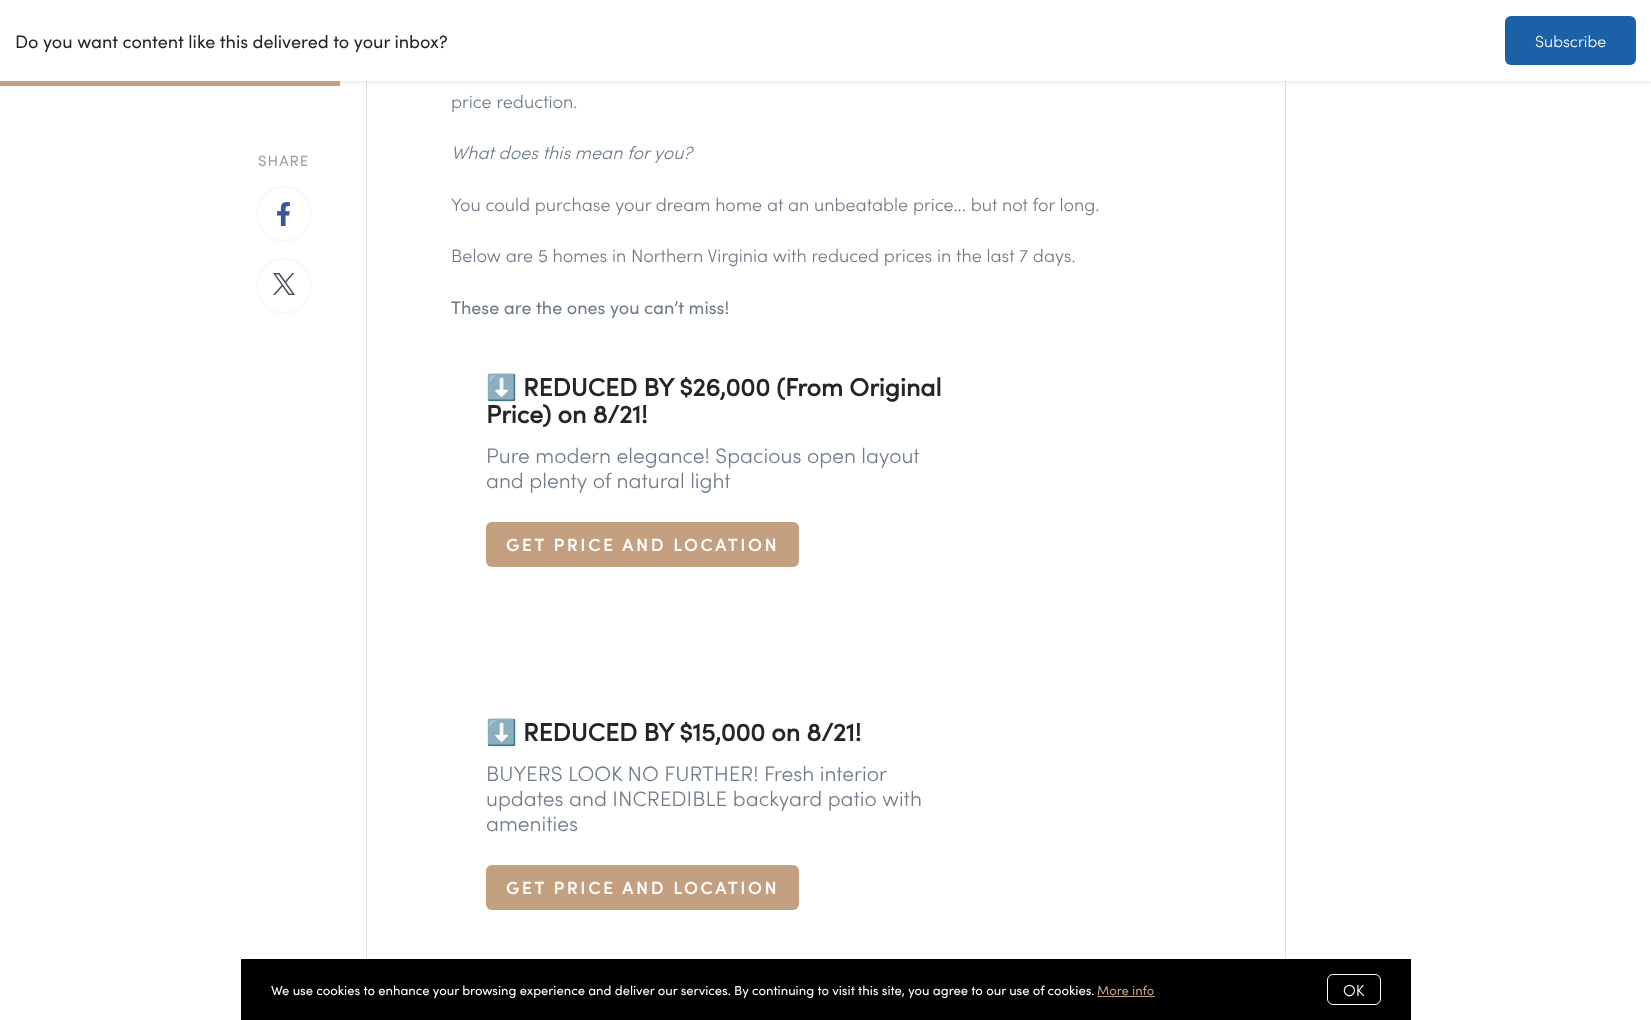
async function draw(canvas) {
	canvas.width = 1651;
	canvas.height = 1020;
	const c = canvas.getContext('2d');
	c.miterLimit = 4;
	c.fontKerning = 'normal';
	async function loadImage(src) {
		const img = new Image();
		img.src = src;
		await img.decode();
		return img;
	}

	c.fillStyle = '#fff';
	c.fillRect(0, 0, 1651, 1020);
	c.strokeStyle = '#d8dfe6';
	c.strokeRect(366.5, -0.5, 919, 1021);
	c.fillStyle = '#0000001a';
	c.filter = 'blur(2.5px)';
	c.beginPath();
	c.rect(1, 1, 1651, 81);
	c.fill();
	c.filter = 'none';
	c.fillStyle = '#fff';
	c.fillRect(0, 0, 1651, 81);
	c.font = '18px Sofia';
	c.fillStyle = '#252525';
	c.fillText('Do you want content like this delivered to your inbox?', 15, 48);
	c.fillStyle = '#1a61a8';
	c.beginPath();
	c.roundRect(1505, 16, 131, 49, 6);
	c.fill();
	c.font = '300 16px Sofia';
	c.fillStyle = '#fff';
	c.fillText('Subscribe', 1535, 47);
	c.fillStyle = '#c5a080';
	c.fillRect(0, 81, 340, 5);
	c.letterSpacing = '1px';
	c.font = '15px Sofia';
	c.fillStyle = '#9ca0a2';
	c.fillText('SHARE', 258, 166);
	c.beginPath();
	c.arc(284, 214, 27, 0, 2 * Math.PI);
	c.strokeStyle = '#f6f8fa';
	c.lineWidth = 2;
	c.stroke();
	c.drawImage(await loadImage('img1.png'), 277, 202, 13, 24);
	c.beginPath();
	c.arc(284, 286, 27, 0, 2 * Math.PI);
	c.stroke();
	c.drawImage(await loadImage('img2.png'), 273, 273, 22, 22);
	c.letterSpacing = '0px';
	c.font = '300 18px Sofia';
	c.fillStyle = '#6e7a87';
	c.fillText('price reduction.', 451, 108);
	c.font = 'italic 300 18px Sofia';
	c.fillText('What does this mean for you?', 451, 159);
	c.font = '300 18px Sofia';
	c.fillText('You could purchase your dream home at an unbeatable price... but not for long.', 451, 211);
	c.fillText('Below are 5 homes in Northern Virginia with reduced prices in the last 7 days.', 451, 262);
	c.font = '18px Sofia';
	c.fillText('These are the ones you can’t miss!', 451, 314);
	c.font = 'bold 25px Noto Color Emoji';
	c.fillStyle = '#252525';
	c.fillText('⬇️', 486, 396);
	c.font = 'bold 25px Sofia';
	c.fillText('REDUCED BY $26,000 (From Original', 523, 396);
	c.fillText('Price) on 8/21!', 486, 423);
	c.font = '300 21px Sofia';
	c.fillStyle = '#6e7a87';
	c.fillText('Pure modern elegance! Spacious open layout', 486, 463);
	c.fillText('and plenty of natural light', 486, 488);
	c.fillStyle = '#c5a080';
	c.beginPath();
	c.roundRect(486, 522, 313, 45, 6);
	c.fill();
	c.letterSpacing = '3px';
	c.font = 'bold 17px Sofia';
	c.fillStyle = '#fff';
	c.fillText('GET PRICE AND LOCATION', 506, 551);
	c.letterSpacing = '0px';
	c.font = 'bold 25px Noto Color Emoji';
	c.fillStyle = '#252525';
	c.fillText('⬇️', 486, 741);
	c.font = 'bold 25px Sofia';
	c.fillText('REDUCED BY $15,000 on 8/21!', 523, 741);
	c.font = '300 21px Sofia';
	c.fillStyle = '#6e7a87';
	for (const [text, x, y] of [
		['BUYERS LOOK NO FURTHER! Fresh interior', 486, 781],
		['updates and INCREDIBLE backyard patio with', 486, 806],
		['amenities', 486, 831],
	]) {
		c.fillText(text, x, y);
	}
	c.fillStyle = '#c5a080';
	c.beginPath();
	c.roundRect(486, 865, 313, 45, 6);
	c.fill();
	c.letterSpacing = '3px';
	c.font = 'bold 17px Sofia';
	c.fillStyle = '#fff';
	c.fillText('GET PRICE AND LOCATION', 506, 894);
	c.fillStyle = '#000';
	c.fillRect(241, 959, 1170, 61);
	c.letterSpacing = '0px';
	c.font = '13px Sofia';
	c.fillStyle = '#fff';
	c.fillText('We use cookies to enhance your browsing experience and deliver our services. By continuing to visit this site, you agree to our use of cookies.', 271, 995);
	c.fillStyle = '#c5a080';
	c.fillText('More info', 1097, 995);
	c.fillRect(1097, 996, 58, 1);
	c.beginPath();
	c.roundRect(1327.5, 974.5, 53, 30, 5.5);
	c.strokeStyle = '#fff';
	c.lineWidth = 1;
	c.stroke();
	c.font = '300 16px Sofia';
	c.fillStyle = '#fff';
	c.fillText('OK', 1343, 996);
}

draw(document.querySelector('canvas'));
